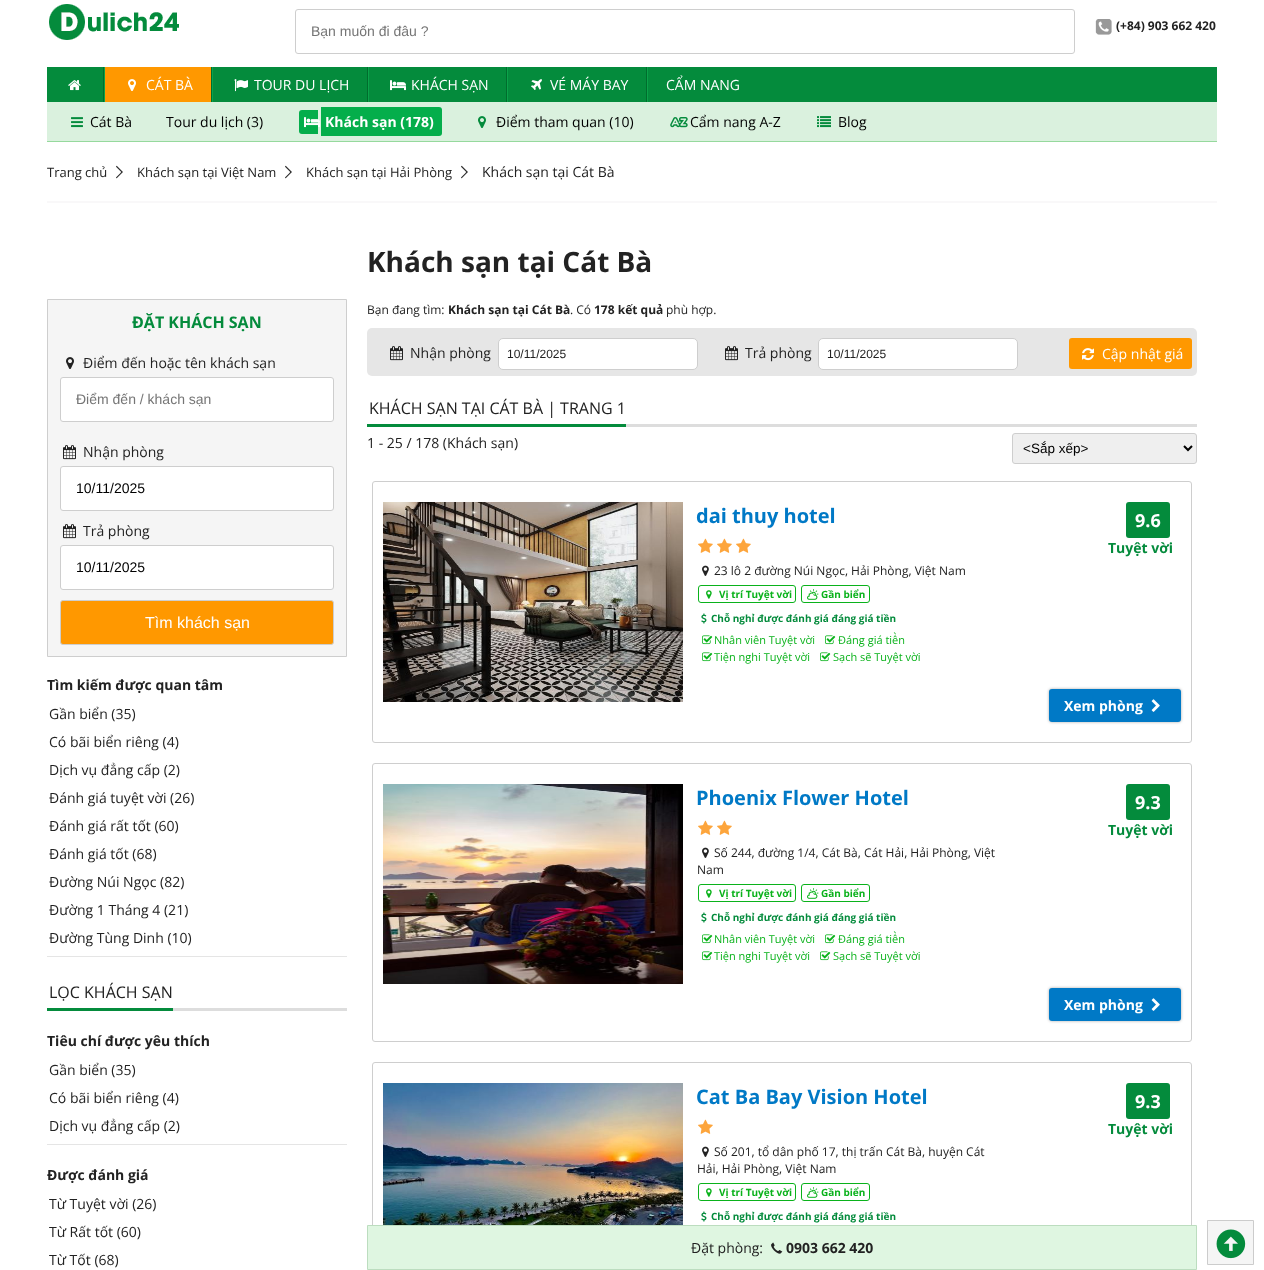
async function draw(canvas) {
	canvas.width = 1264;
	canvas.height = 1270;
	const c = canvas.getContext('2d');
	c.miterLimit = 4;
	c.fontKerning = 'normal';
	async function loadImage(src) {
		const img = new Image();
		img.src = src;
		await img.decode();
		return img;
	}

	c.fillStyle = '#fff';
	c.fillRect(0, 0, 1264, 1270);
	c.drawImage(await loadImage('img1.png'), 49, 4, 130, 36);
	c.beginPath();
	c.roundRect(295.5, 9.5, 779, 44, 2.5);
	c.strokeStyle = '#cecece';
	c.stroke();
	c.font = '14px Liberation Sans';
	c.fillStyle = '#757575';
	c.fillText('Bạn muốn đi đâu ?', 311, 36);
	c.drawImage(await loadImage('img2.png'), 1095, 19, 17, 16);
	c.font = 'bold 12px Open Sans';
	c.fillStyle = '#222';
	c.fillText('(+84) 903 662 420', 1116, 30);
	c.fillStyle = '#048b3c';
	c.fillRect(47, 67, 1170, 35);
	c.fillStyle = '#006d2d';
	c.fillRect(103, 67, 1, 35);
	c.drawImage(await loadImage('img3.png'), 68, 80, 13, 11);
	for (const [x, y, w, h, color] of [
		[211, 67, 1, 35, '#006d2d'],
		[104, 67, 1, 35, '#0ba34a'],
		[105, 67, 106, 35, '#ff9800'],
	]) {
		c.fillStyle = color;
		c.fillRect(x, y, w, h);
	}
	c.drawImage(await loadImage('img4.png'), 128, 79, 8, 12);
	c.font = '14px Open Sans';
	c.fillStyle = '#fff';
	c.fillText('CÁT BÀ', 146, 90);
	c.fillStyle = '#006d2d';
	c.fillRect(367, 67, 1, 35);
	c.fillStyle = '#0ba34a';
	c.fillRect(212, 67, 1, 35);
	c.drawImage(await loadImage('img5.png'), 234, 79, 14, 13);
	c.fillStyle = '#fff';
	c.fillText('TOUR DU LỊCH', 254, 90);
	c.fillStyle = '#006d2d';
	c.fillRect(506, 67, 1, 35);
	c.fillStyle = '#0ba34a';
	c.fillRect(368, 67, 1, 35);
	c.drawImage(await loadImage('img6.png'), 390, 80, 16, 11);
	c.fillStyle = '#fff';
	c.fillText('KHÁCH SẠN', 411, 90);
	c.fillStyle = '#006d2d';
	c.fillRect(646, 67, 1, 35);
	c.fillStyle = '#0ba34a';
	c.fillRect(507, 67, 1, 35);
	c.drawImage(await loadImage('img7.png'), 531, 79, 11, 11);
	c.fillStyle = '#fff';
	c.fillText('VÉ MÁY BAY', 550, 90);
	c.fillStyle = '#0ba34a';
	c.fillRect(647, 67, 1, 35);
	c.fillStyle = '#fff';
	c.fillText('CẨM NANG', 666, 90);
	c.fillStyle = '#daf1de';
	c.fillRect(47, 102, 1170, 39);
	c.fillStyle = '#96d99d';
	c.fillRect(47, 141, 1170, 1);
	c.drawImage(await loadImage('img8.png'), 71, 117, 12, 11);
	c.fillStyle = '#000';
	c.fillText('Cát Bà', 90, 127);
	c.fillText('Tour du lịch (3)', 166, 127);
	c.fillStyle = '#04ae4b';
	c.beginPath();
	c.roundRect(299, 110, 19, 24, [3, 0, 0, 3]);
	c.fill();
	c.beginPath();
	c.roundRect(321, 107, 121, 29, [0, 3, 3, 0]);
	c.fill();
	c.drawImage(await loadImage('img9.png'), 304, 117, 16, 11);
	c.font = 'bold 14px Open Sans';
	c.fillStyle = '#fff';
	c.fillText('Khách sạn (178)', 325, 127);
	c.drawImage(await loadImage('img10.png'), 478, 116, 8, 12);
	c.font = '14px Open Sans';
	c.fillStyle = '#000';
	c.fillText('Điểm tham quan (10)', 496, 127);
	c.drawImage(await loadImage('img11.png'), 670, 117, 18, 11);
	c.fillText('Cẩm nang A-Z', 690, 127);
	c.drawImage(await loadImage('img12.png'), 817, 116, 14, 12);
	c.fillText('Blog', 838, 127);
	c.font = '13px Open Sans';
	c.fillStyle = '#222';
	c.fillText('Trang chủ', 47, 177);
	c.drawImage(await loadImage('img13.png'), 116, 165, 7, 14);
	c.fillText('Khách sạn tại Việt Nam', 137, 177);
	c.drawImage(await loadImage('img13.png'), 285, 165, 7, 14);
	c.fillText('Khách sạn tại Hải Phòng', 306, 177);
	c.drawImage(await loadImage('img13.png'), 461, 165, 7, 14);
	c.font = '14px Open Sans';
	c.fillText('Khách sạn tại Cát Bà', 482, 177);
	c.fillStyle = '#f9f8f9';
	c.fillRect(47, 201, 1170, 2);
	c.font = 'bold 28px Open Sans';
	c.fillStyle = '#222';
	c.fillText('Khách sạn tại Cát Bà', 367, 272);
	c.fillStyle = '#f5f5f5';
	c.beginPath();
	c.rect(47.5, 299.5, 299, 357);
	c.fill();
	c.stroke();
	c.font = 'bold 16px Open Sans';
	c.fillStyle = '#048b3c';
	c.fillText('ĐẶT KHÁCH SẠN', 132, 328);
	c.drawImage(await loadImage('img14.png'), 66, 357, 8, 12);
	c.font = '14px Open Sans';
	c.fillStyle = '#222';
	c.fillText('Điểm đến hoặc tên khách sạn', 83, 368);
	c.fillStyle = '#fff';
	c.beginPath();
	c.roundRect(60.5, 377.5, 273, 44, 2.5);
	c.fill();
	c.stroke();
	c.font = '14px Liberation Sans';
	c.fillStyle = '#757575';
	c.fillText('Điểm đến / khách sạn', 76, 404);
	c.drawImage(await loadImage('img15.png'), 63, 445, 13, 15);
	c.font = '14px Open Sans';
	c.fillStyle = '#222';
	c.fillText('Nhận phòng', 83, 457);
	c.fillStyle = '#fff';
	c.beginPath();
	c.roundRect(60.5, 466.5, 273, 44, 2.5);
	c.fill();
	c.stroke();
	c.font = '14px Liberation Sans';
	c.fillStyle = '#000';
	c.fillText('10/11/2025', 76, 493);
	c.drawImage(await loadImage('img15.png'), 63, 524, 13, 15);
	c.font = '14px Open Sans';
	c.fillStyle = '#222';
	c.fillText('Trả phòng', 83, 536);
	c.fillStyle = '#fff';
	c.beginPath();
	c.roundRect(60.5, 545.5, 273, 44, 2.5);
	c.fill();
	c.stroke();
	c.font = '14px Liberation Sans';
	c.fillStyle = '#000';
	c.fillText('10/11/2025', 76, 572);
	c.fillStyle = '#ff9800';
	c.beginPath();
	c.roundRect(60.5, 600.5, 273, 44, 2.5);
	c.fill();
	c.stroke();
	c.font = '16px Liberation Sans';
	c.fillStyle = '#fff';
	c.fillText('Tìm khách sạn', 145, 628);
	c.fillStyle = '#e5e5e5';
	c.fillRect(47, 956, 300, 1);
	c.font = 'bold 14px Open Sans';
	c.fillStyle = '#222';
	c.fillText('Tìm kiếm được quan tâm', 47, 690);
	c.font = '14px Open Sans';
	for (const [text, x, y] of [
		['Gần biển (35)', 49, 719],
		['Có bãi biển riêng (4)', 49, 747],
		['Dịch vụ đẳng cấp (2)', 49, 775],
		['Đánh giá tuyệt vời (26)', 49, 803],
		['Đánh giá rất tốt (60)', 49, 831],
		['Đánh giá tốt (68)', 49, 859],
		['Đường Núi Ngọc (82)', 49, 887],
		['Đường 1 Tháng 4 (21)', 49, 915],
		['Đường Tùng Dinh (10)', 49, 943],
	]) {
		c.fillText(text, x, y);
	}
	c.fillStyle = '#ddd';
	c.fillRect(173, 1008, 174, 3);
	c.fillStyle = '#048b3c';
	c.fillRect(47, 1008, 126, 3);
	c.font = '16px Open Sans';
	c.fillStyle = '#222';
	c.fillText('LỌC KHÁCH SẠN', 49, 998);
	c.fillStyle = '#e5e5e5';
	c.fillRect(47, 1144, 300, 1);
	c.font = 'bold 14px Open Sans';
	c.fillStyle = '#222';
	c.fillText('Tiêu chí được yêu thích', 47, 1046);
	c.font = '14px Open Sans';
	for (const [text, x, y] of [
		['Gần biển (35)', 49, 1075],
		['Có bãi biển riêng (4)', 49, 1103],
		['Dịch vụ đẳng cấp (2)', 49, 1131],
	]) {
		c.fillText(text, x, y);
	}
	c.font = 'bold 14px Open Sans';
	c.fillText('Được đánh giá', 47, 1180);
	c.font = '14px Open Sans';
	for (const [text, x, y] of [
		['Từ Tuyệt vời (26)', 49, 1209],
		['Từ Rất tốt (60)', 49, 1237],
		['Từ Tốt (68)', 49, 1265],
	]) {
		c.fillText(text, x, y);
	}
	c.font = '12px Open Sans';
	c.fillText('Bạn đang tìm:', 367, 314);
	c.font = 'bold 12px Open Sans';
	c.fillText('Khách sạn tại Cát Bà', 448, 314);
	c.font = '12px Open Sans';
	c.fillText('. Có', 570, 314);
	c.font = 'bold 12px Open Sans';
	c.fillText('178 kết quả', 594, 314);
	c.font = '12px Open Sans';
	c.fillText('phù hợp.', 666, 314);
	c.fillStyle = '#e6e6e6';
	c.beginPath();
	c.roundRect(367, 328, 830, 48, 5);
	c.fill();
	c.drawImage(await loadImage('img16.png'), 390, 346, 13, 15);
	c.font = '14px Open Sans';
	c.fillStyle = '#222';
	c.fillText('Nhận phòng', 410, 358);
	c.fillStyle = '#fff';
	c.beginPath();
	c.roundRect(498.5, 338.5, 199, 31, 4.5);
	c.fill();
	c.stroke();
	c.font = '12px Liberation Sans';
	c.fillStyle = '#222';
	c.fillText('10/11/2025', 507, 358);
	c.drawImage(await loadImage('img16.png'), 725, 346, 13, 15);
	c.font = '14px Open Sans';
	c.fillText('Trả phòng', 745, 358);
	c.fillStyle = '#fff';
	c.beginPath();
	c.roundRect(818.5, 338.5, 199, 31, 4.5);
	c.fill();
	c.stroke();
	c.font = '12px Liberation Sans';
	c.fillStyle = '#222';
	c.fillText('10/11/2025', 827, 358);
	c.fillStyle = '#ff9800';
	c.beginPath();
	c.roundRect(1069, 338, 123, 31, 3);
	c.fill();
	c.drawImage(await loadImage('img17.png'), 1082, 348, 12, 13);
	c.font = '14px Open Sans';
	c.fillStyle = '#fff';
	c.fillText('Cập nhật giá', 1102, 359);
	c.fillStyle = '#ddd';
	c.fillRect(626, 424, 571, 3);
	c.fillStyle = '#048b3c';
	c.fillRect(367, 424, 259, 3);
	c.font = '16px Open Sans';
	c.fillStyle = '#222';
	c.fillText('KHÁCH SẠN TẠI CÁT BÀ | TRANG 1', 369, 414);
	c.font = '14px Open Sans';
	c.fillText('1 - 25 / 178 (Khách sạn)', 367, 448);
	c.fillStyle = '#efefef';
	c.beginPath();
	c.roundRect(1012.5, 433.5, 184, 30, 2.5);
	c.fill();
	c.stroke();
	c.beginPath();
	c.moveTo(1184, 446);
	c.lineTo(1188, 450);
	c.lineTo(1192, 446);
	c.strokeStyle = '#000';
	c.lineWidth = 2;
	c.stroke();
	c.font = '13.5px Liberation Sans';
	c.fillStyle = '#000';
	c.fillText('<Sắp xếp>', 1023, 453);
	c.beginPath();
	c.roundRect(372.5, 481.5, 819, 261, 2.5);
	c.strokeStyle = '#cecece';
	c.lineWidth = 1;
	c.stroke();
	c.drawImage(await loadImage('img18.png'), 383, 502, 300, 200);
	c.font = 'bold 20px Open Sans';
	c.fillStyle = '#0079c6';
	c.fillText('dai thuy hotel', 696, 523);
	c.drawImage(await loadImage('img19.png'), 698, 538, 15, 15);
	c.drawImage(await loadImage('img19.png'), 717, 538, 15, 15);
	c.drawImage(await loadImage('img19.png'), 736, 538, 15, 15);
	c.drawImage(await loadImage('img20.png'), 702, 565, 7, 11);
	c.font = '12px Open Sans';
	c.fillStyle = '#222';
	c.fillText('23 lô 2 đường Núi Ngọc, Hải Phòng, Việt Nam', 714, 575);
	c.beginPath();
	c.roundRect(698.5, 585.5, 97, 17, 2.5);
	c.strokeStyle = '#0ab21b';
	c.stroke();
	c.drawImage(await loadImage('img21.png'), 706, 590, 6, 9);
	c.font = 'bold 10px Open Sans';
	c.fillStyle = '#0ab21b';
	c.fillText('Vị trí Tuyệt vời', 719, 598);
	c.beginPath();
	c.roundRect(801.5, 585.5, 68, 17, 2.5);
	c.stroke();
	c.drawImage(await loadImage('img22.png'), 807, 589, 12, 11);
	c.fillText('Gần biển', 821, 598);
	c.drawImage(await loadImage('img23.png'), 701, 613, 6, 11);
	c.fillStyle = '#048b3c';
	c.fillText('Chỗ nghỉ được đánh giá đáng giá tiền', 711, 622);
	c.drawImage(await loadImage('img24.png'), 702, 635, 11, 10);
	c.font = '11px Open Sans';
	c.fillStyle = '#0ab21b';
	c.fillText('Nhân viên Tuyệt vời', 714, 644);
	c.drawImage(await loadImage('img24.png'), 825, 635, 11, 10);
	c.fillText('Đáng giá tiền', 838, 644);
	c.drawImage(await loadImage('img24.png'), 702, 652, 11, 10);
	c.fillText('Tiện nghi Tuyệt vời', 714, 661);
	c.drawImage(await loadImage('img24.png'), 820, 652, 11, 10);
	c.fillText('Sạch sẽ Tuyệt vời', 833, 661);
	c.fillStyle = '#048b3c';
	c.beginPath();
	c.roundRect(1126, 502, 44, 36, 3);
	c.fill();
	c.font = 'bold 18px Open Sans';
	c.fillStyle = '#fff';
	c.fillText('9.6', 1135, 527);
	c.font = 'bold 14px Open Sans';
	c.fillStyle = '#048b3c';
	c.fillText('Tuyệt vời', 1108, 553);
	c.fillStyle = '#aaa';
	c.filter = 'blur(1.5px)';
	c.beginPath();
	c.roundRect(1049, 689, 132, 33, 3);
	c.fill();
	c.filter = 'none';
	c.fillStyle = '#0079c6';
	c.beginPath();
	c.roundRect(1049, 689, 132, 33, 3);
	c.fill();
	c.fillStyle = '#fff';
	c.fillText('Xem phòng', 1064, 711);
	c.drawImage(await loadImage('img25.png'), 1151, 699, 9, 13);
	c.beginPath();
	c.roundRect(372.5, 763.5, 819, 278, 2.5);
	c.strokeStyle = '#cecece';
	c.stroke();
	c.drawImage(await loadImage('img26.png'), 383, 784, 300, 200);
	c.font = 'bold 20px Open Sans';
	c.fillStyle = '#0079c6';
	c.fillText('Phoenix Flower Hotel', 696, 805);
	c.drawImage(await loadImage('img19.png'), 698, 820, 15, 15);
	c.drawImage(await loadImage('img19.png'), 717, 820, 15, 15);
	c.drawImage(await loadImage('img20.png'), 702, 847, 7, 11);
	c.font = '12px Open Sans';
	c.fillStyle = '#222';
	c.fillText('Số 244, đường 1/4, Cát Bà, Cát Hải, Hải Phòng, Việt', 714, 857);
	c.fillText('Nam', 697, 874);
	c.beginPath();
	c.roundRect(698.5, 884.5, 97, 17, 2.5);
	c.strokeStyle = '#0ab21b';
	c.stroke();
	c.drawImage(await loadImage('img21.png'), 706, 889, 6, 9);
	c.font = 'bold 10px Open Sans';
	c.fillStyle = '#0ab21b';
	c.fillText('Vị trí Tuyệt vời', 719, 897);
	c.beginPath();
	c.roundRect(801.5, 884.5, 68, 17, 2.5);
	c.stroke();
	c.drawImage(await loadImage('img22.png'), 807, 888, 12, 11);
	c.fillText('Gần biển', 821, 897);
	c.drawImage(await loadImage('img23.png'), 701, 912, 6, 11);
	c.fillStyle = '#048b3c';
	c.fillText('Chỗ nghỉ được đánh giá đáng giá tiền', 711, 921);
	c.drawImage(await loadImage('img24.png'), 702, 934, 11, 10);
	c.font = '11px Open Sans';
	c.fillStyle = '#0ab21b';
	c.fillText('Nhân viên Tuyệt vời', 714, 943);
	c.drawImage(await loadImage('img24.png'), 825, 934, 11, 10);
	c.fillText('Đáng giá tiền', 838, 943);
	c.drawImage(await loadImage('img24.png'), 702, 951, 11, 10);
	c.fillText('Tiện nghi Tuyệt vời', 714, 960);
	c.drawImage(await loadImage('img24.png'), 820, 951, 11, 10);
	c.fillText('Sạch sẽ Tuyệt vời', 833, 960);
	c.fillStyle = '#048b3c';
	c.beginPath();
	c.roundRect(1126, 784, 44, 36, 3);
	c.fill();
	c.font = 'bold 18px Open Sans';
	c.fillStyle = '#fff';
	c.fillText('9.3', 1135, 809);
	c.font = 'bold 14px Open Sans';
	c.fillStyle = '#048b3c';
	c.fillText('Tuyệt vời', 1108, 835);
	c.fillStyle = '#aaa';
	c.filter = 'blur(1.5px)';
	c.beginPath();
	c.roundRect(1049, 988, 132, 33, 3);
	c.fill();
	c.filter = 'none';
	c.fillStyle = '#0079c6';
	c.beginPath();
	c.roundRect(1049, 988, 132, 33, 3);
	c.fill();
	c.fillStyle = '#fff';
	c.fillText('Xem phòng', 1064, 1010);
	c.drawImage(await loadImage('img25.png'), 1151, 998, 9, 13);
	c.beginPath();
	c.roundRect(372.5, 1062.5, 819, 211, 2.5);
	c.strokeStyle = '#cecece';
	c.stroke();
	c.drawImage(await loadImage('img27.png'), 383, 1083, 300, 142);
	c.font = 'bold 20px Open Sans';
	c.fillStyle = '#0079c6';
	c.fillText('Cat Ba Bay Vision Hotel', 696, 1104);
	c.drawImage(await loadImage('img19.png'), 698, 1119, 15, 15);
	c.drawImage(await loadImage('img20.png'), 702, 1146, 7, 11);
	c.font = '12px Open Sans';
	c.fillStyle = '#222';
	c.fillText('Số 201, tổ dân phố 17, thị trấn Cát Bà, huyện Cát', 714, 1156);
	c.fillText('Hải, Hải Phòng, Việt Nam', 697, 1173);
	c.beginPath();
	c.roundRect(698.5, 1183.5, 97, 17, 2.5);
	c.strokeStyle = '#0ab21b';
	c.stroke();
	c.drawImage(await loadImage('img21.png'), 706, 1188, 6, 9);
	c.font = 'bold 10px Open Sans';
	c.fillStyle = '#0ab21b';
	c.fillText('Vị trí Tuyệt vời', 719, 1196);
	c.beginPath();
	c.roundRect(801.5, 1183.5, 68, 17, 2.5);
	c.stroke();
	c.drawImage(await loadImage('img22.png'), 807, 1187, 12, 11);
	c.fillText('Gần biển', 821, 1196);
	c.drawImage(await loadImage('img23.png'), 701, 1211, 6, 11);
	c.fillStyle = '#048b3c';
	c.fillText('Chỗ nghỉ được đánh giá đáng giá tiền', 711, 1220);
	c.beginPath();
	c.roundRect(1126, 1083, 44, 36, 3);
	c.fill();
	c.font = 'bold 18px Open Sans';
	c.fillStyle = '#fff';
	c.fillText('9.3', 1135, 1108);
	c.font = 'bold 14px Open Sans';
	c.fillStyle = '#048b3c';
	c.fillText('Tuyệt vời', 1108, 1134);
	c.fillStyle = '#dff6e1';
	c.beginPath();
	c.rect(367.5, 1225.5, 829, 44);
	c.fill();
	c.strokeStyle = '#bcddbf';
	c.stroke();
	c.font = '14px Open Sans';
	c.fillStyle = '#222';
	c.fillText('Đặt phòng:', 691, 1253);
	c.drawImage(await loadImage('img28.png'), 771, 1242, 12, 12);
	c.font = 'bold 14px Open Sans';
	c.fillText('0903 662 420', 786, 1253);
	c.fillStyle = '#f5f5f5';
	c.beginPath();
	c.rect(1207.5, 1220.5, 46, 44);
	c.fill();
	c.strokeStyle = '#ccc';
	c.stroke();
	c.drawImage(await loadImage('img29.png'), 1216, 1229, 30, 30);
}

draw(document.querySelector('canvas'));
